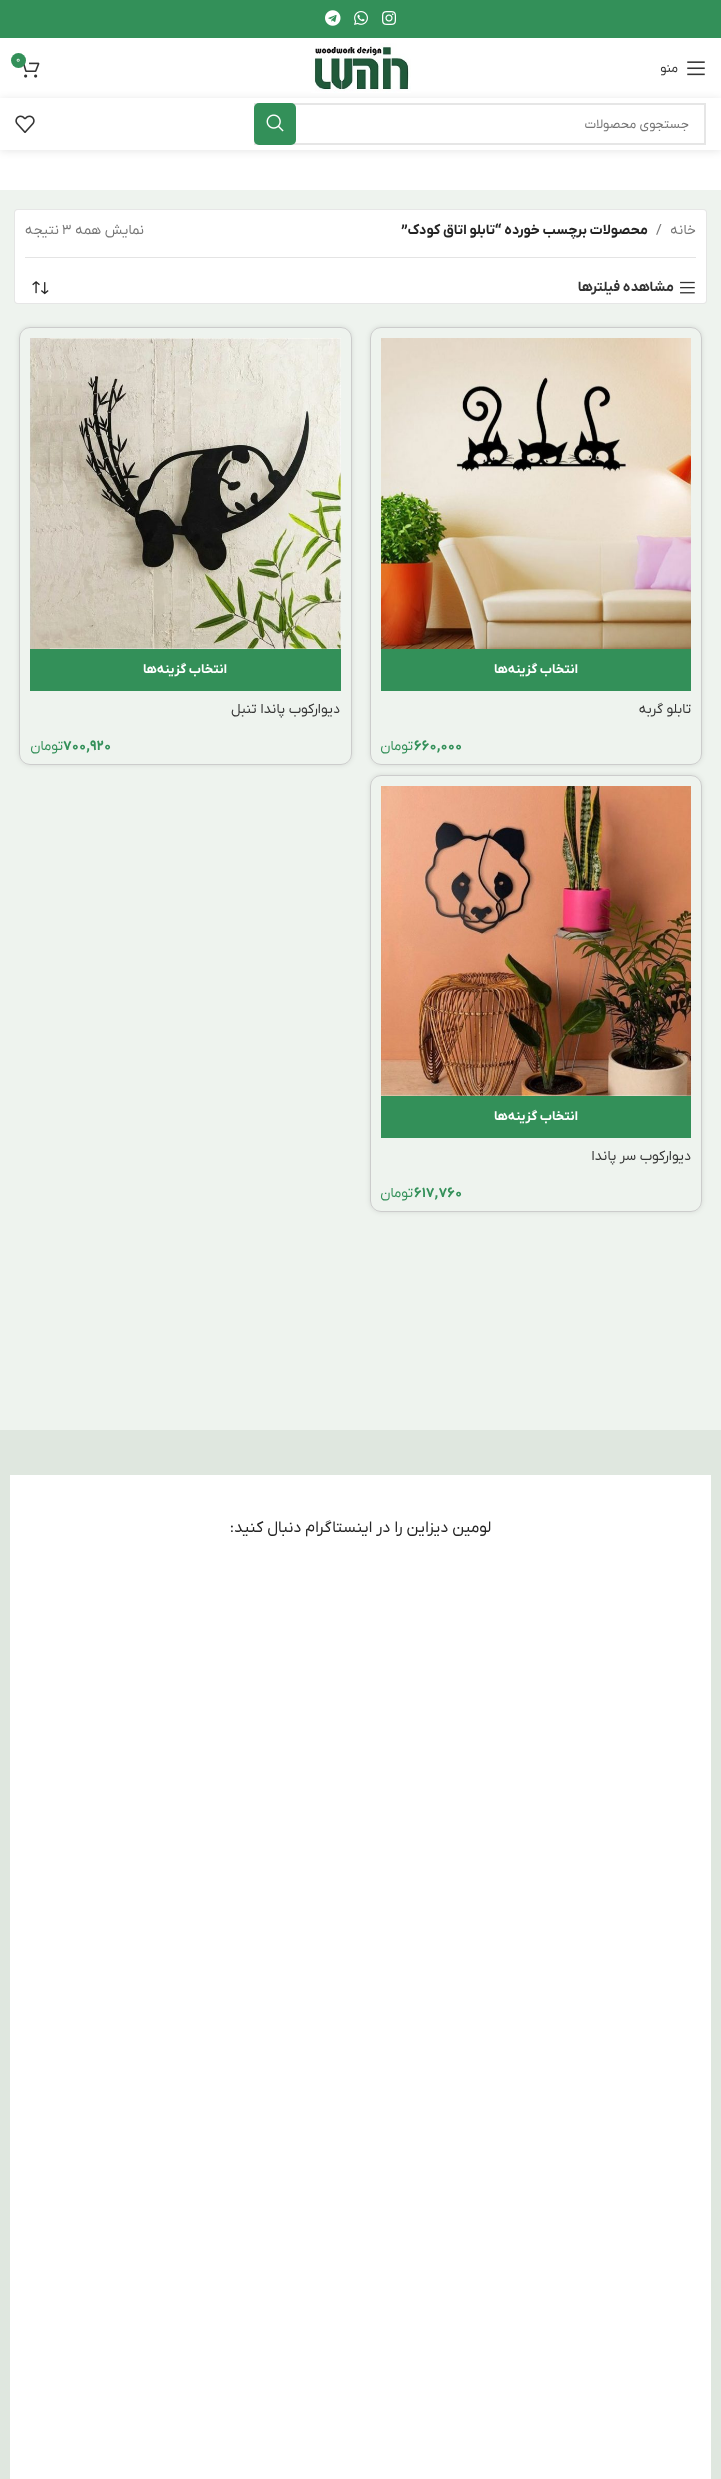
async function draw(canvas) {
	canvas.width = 721;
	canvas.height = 2479;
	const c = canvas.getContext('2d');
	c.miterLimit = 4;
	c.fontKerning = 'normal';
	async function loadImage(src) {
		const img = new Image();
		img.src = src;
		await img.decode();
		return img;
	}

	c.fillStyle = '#fff';
	c.fillRect(0, 0, 721, 2479);
	c.fillStyle = '#339059';
	c.fillRect(0, 0, 721, 38);
	c.drawImage(await loadImage('img1.png'), 382, 11, 14, 14);
	c.drawImage(await loadImage('img2.png'), 354, 11, 14, 14);
	c.drawImage(await loadImage('img3.png'), 325, 10, 16, 16);
	c.save();
	c.beginPath();
	c.moveTo(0, 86);
	c.lineTo(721, 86);
	c.lineTo(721, 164);
	c.lineTo(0, 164);
	c.closePath();
	c.moveTo(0, 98);
	c.lineTo(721, 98);
	c.lineTo(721, 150);
	c.lineTo(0, 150);
	c.closePath();
	c.clip('evenodd');
	c.fillStyle = '#0000001a';
	c.filter = 'blur(4px)';
	c.beginPath();
	c.rect(0, 99, 721, 52);
	c.fill();
	c.filter = 'none';
	c.restore();
	c.drawImage(await loadImage('img4.png'), 311, 43, 100, 50);
	c.drawImage(await loadImage('img5.png'), 23, 62, 17, 16);
	c.beginPath();
	c.arc(18.5, 60.5, 7.5, 0, 2 * Math.PI);
	c.fill();
	c.font = '9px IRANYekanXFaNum';
	c.fillStyle = '#fff';
	c.fillText('0', 16, 62);
	c.drawImage(await loadImage('img6.png'), 687, 61, 18, 15);
	c.direction = 'rtl';
	c.font = '13px IRANYekanXFaNum';
	c.fillStyle = '#333';
	c.fillText('منو', 678, 72);
	c.strokeStyle = '#e6e6e6';
	c.lineWidth = 2;
	c.strokeRect(255, 104, 450, 40);
	c.fillStyle = '#767676';
	c.fillText('جستجوی محصولات', 689, 128);
	c.fillStyle = '#339059';
	c.beginPath();
	c.roundRect(254, 103, 42, 42, 5);
	c.fill();
	c.drawImage(await loadImage('img7.png'), 266, 114, 18, 18);
	c.drawImage(await loadImage('img8.png'), 15, 115, 20, 18);
	c.fillStyle = '#eef3ee';
	c.fillRect(0, 190, 721, 1240);
	c.fillStyle = '#e6e6e6';
	c.filter = 'blur(0.5px)';
	c.beginPath();
	c.roundRect(14, 209, 693, 95, 4);
	c.fill();
	c.filter = 'none';
	c.fillStyle = '#fff';
	c.beginPath();
	c.roundRect(15, 210, 691, 93, 3);
	c.fill();
	c.fillStyle = '#e4e4e4';
	c.fillRect(25, 257, 671, 1);
	c.font = '14px IRANYekanXFaNum';
	c.fillStyle = '#767676';
	c.fillText('خانه', 696, 234);
	c.direction = 'ltr';
	c.fillText('/', 656, 234);
	c.direction = 'rtl';
	c.font = 'bold 14px IRANYekanXFaNum';
	c.fillStyle = '#242424';
	c.fillText('محصولات برچسب خورده “تابلو اتاق کودک”', 648, 234);
	c.font = '14px IRANYekanXFaNum';
	c.fillStyle = '#767676';
	c.fillText('نمایش همه', 144, 234);
	c.direction = 'ltr';
	c.fillText('3', 62, 234);
	c.direction = 'rtl';
	c.fillText('نتیجه', 59, 234);
	c.drawImage(await loadImage('img9.png'), 680, 281, 15, 13);
	c.font = 'bold 14px IRANYekanXFaNum';
	c.fillStyle = '#333';
	c.fillText('مشاهده فیلترها', 674, 291);
	c.drawImage(await loadImage('img10.png'), 32, 281, 17, 14);
	c.save();
	c.beginPath();
	c.moveTo(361, 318);
	c.lineTo(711, 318);
	c.lineTo(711, 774);
	c.lineTo(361, 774);
	c.closePath();
	c.moveTo(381, 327);
	c.lineTo(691, 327);
	c.bezierCurveTo(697, 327, 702, 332, 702, 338);
	c.lineTo(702, 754);
	c.bezierCurveTo(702, 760, 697, 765, 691, 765);
	c.lineTo(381, 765);
	c.bezierCurveTo(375, 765, 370, 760, 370, 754);
	c.lineTo(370, 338);
	c.bezierCurveTo(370, 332, 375, 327, 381, 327);
	c.closePath();
	c.clip('evenodd');
	c.fillStyle = '#0000001a';
	c.filter = 'blur(2.5px)';
	c.beginPath();
	c.roundRect(370, 327, 332, 438, 11);
	c.fill();
	c.filter = 'none';
	c.restore();
	c.beginPath();
	c.roundRect(370.5, 327.5, 331, 437, 10.5);
	c.strokeStyle = '#ccc';
	c.lineWidth = 1;
	c.stroke();
	c.drawImage(await loadImage('img11.png'), 381, 338, 310, 311);
	c.fillStyle = '#339059';
	c.fillRect(381, 649, 310, 42);
	c.font = 'bold 13px IRANYekanXFaNum';
	c.fillStyle = '#fff';
	c.fillText('انتخاب گزینه‌ها', 578, 673);
	c.font = '14px IRANYekanXFaNum';
	c.fillStyle = '#333';
	c.fillText('تابلو گربه', 691, 713);
	c.direction = 'ltr';
	c.font = 'bold 14px IRANYekanXFaNum';
	c.fillStyle = '#339059';
	c.fillText('۶۶۰,۰۰۰', 414, 750);
	c.direction = 'rtl';
	c.font = '14px IRANYekanXFaNum';
	c.fillText('تومان', 413, 750);
	c.save();
	c.beginPath();
	c.moveTo(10, 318);
	c.lineTo(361, 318);
	c.lineTo(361, 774);
	c.lineTo(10, 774);
	c.closePath();
	c.moveTo(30, 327);
	c.lineTo(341, 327);
	c.bezierCurveTo(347, 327, 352, 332, 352, 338);
	c.lineTo(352, 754);
	c.bezierCurveTo(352, 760, 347, 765, 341, 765);
	c.lineTo(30, 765);
	c.bezierCurveTo(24, 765, 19, 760, 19, 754);
	c.lineTo(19, 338);
	c.bezierCurveTo(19, 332, 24, 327, 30, 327);
	c.closePath();
	c.clip('evenodd');
	c.fillStyle = '#0000001a';
	c.filter = 'blur(2.5px)';
	c.beginPath();
	c.roundRect(19, 327, 333, 438, 11);
	c.fill();
	c.filter = 'none';
	c.restore();
	c.beginPath();
	c.roundRect(19.5, 327.5, 332, 437, 10.5);
	c.stroke();
	c.drawImage(await loadImage('img12.png'), 30, 338, 311, 311);
	c.fillRect(30, 649, 311, 42);
	c.font = 'bold 13px IRANYekanXFaNum';
	c.fillStyle = '#fff';
	c.fillText('انتخاب گزینه‌ها', 227, 673);
	c.font = '14px IRANYekanXFaNum';
	c.fillStyle = '#333';
	c.fillText('دیوارکوب پاندا تنبل', 340, 713);
	c.direction = 'ltr';
	c.font = 'bold 14px IRANYekanXFaNum';
	c.fillStyle = '#339059';
	c.fillText('۷۰۰,۹۲۰', 63, 750);
	c.direction = 'rtl';
	c.font = '14px IRANYekanXFaNum';
	c.fillText('تومان', 63, 750);
	c.save();
	c.beginPath();
	c.moveTo(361, 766);
	c.lineTo(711, 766);
	c.lineTo(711, 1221);
	c.lineTo(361, 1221);
	c.closePath();
	c.moveTo(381, 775);
	c.lineTo(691, 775);
	c.bezierCurveTo(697, 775, 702, 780, 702, 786);
	c.lineTo(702, 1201);
	c.bezierCurveTo(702, 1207, 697, 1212, 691, 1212);
	c.lineTo(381, 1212);
	c.bezierCurveTo(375, 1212, 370, 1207, 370, 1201);
	c.lineTo(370, 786);
	c.bezierCurveTo(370, 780, 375, 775, 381, 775);
	c.closePath();
	c.clip('evenodd');
	c.fillStyle = '#0000001a';
	c.filter = 'blur(2.5px)';
	c.beginPath();
	c.roundRect(370, 775, 332, 437, 11);
	c.fill();
	c.filter = 'none';
	c.restore();
	c.beginPath();
	c.roundRect(370.5, 775.5, 331, 436, 10.5);
	c.stroke();
	c.drawImage(await loadImage('img13.png'), 381, 786, 310, 310);
	c.fillRect(381, 1096, 310, 42);
	c.font = 'bold 13px IRANYekanXFaNum';
	c.fillStyle = '#fff';
	c.fillText('انتخاب گزینه‌ها', 578, 1120);
	c.font = '14px IRANYekanXFaNum';
	c.fillStyle = '#333';
	c.fillText('دیوارکوب سر پاندا', 691, 1160);
	c.direction = 'ltr';
	c.font = 'bold 14px IRANYekanXFaNum';
	c.fillStyle = '#339059';
	c.fillText('۶۱۷,۷۶۰', 414, 1197);
	c.direction = 'rtl';
	c.font = '14px IRANYekanXFaNum';
	c.fillText('تومان', 413, 1197);
	c.fillStyle = '#dfe7df';
	c.fillRect(0, 1430, 721, 1049);
	c.fillStyle = '#fff';
	c.fillRect(10, 1475, 701, 1004);
	c.font = '16px IRANYekanXFaNum';
	c.fillStyle = '#242424';
	c.fillText('لومین دیزاین را در اینستاگرام دنبال کنید:', 491, 1532);
}

draw(document.querySelector('canvas'));
